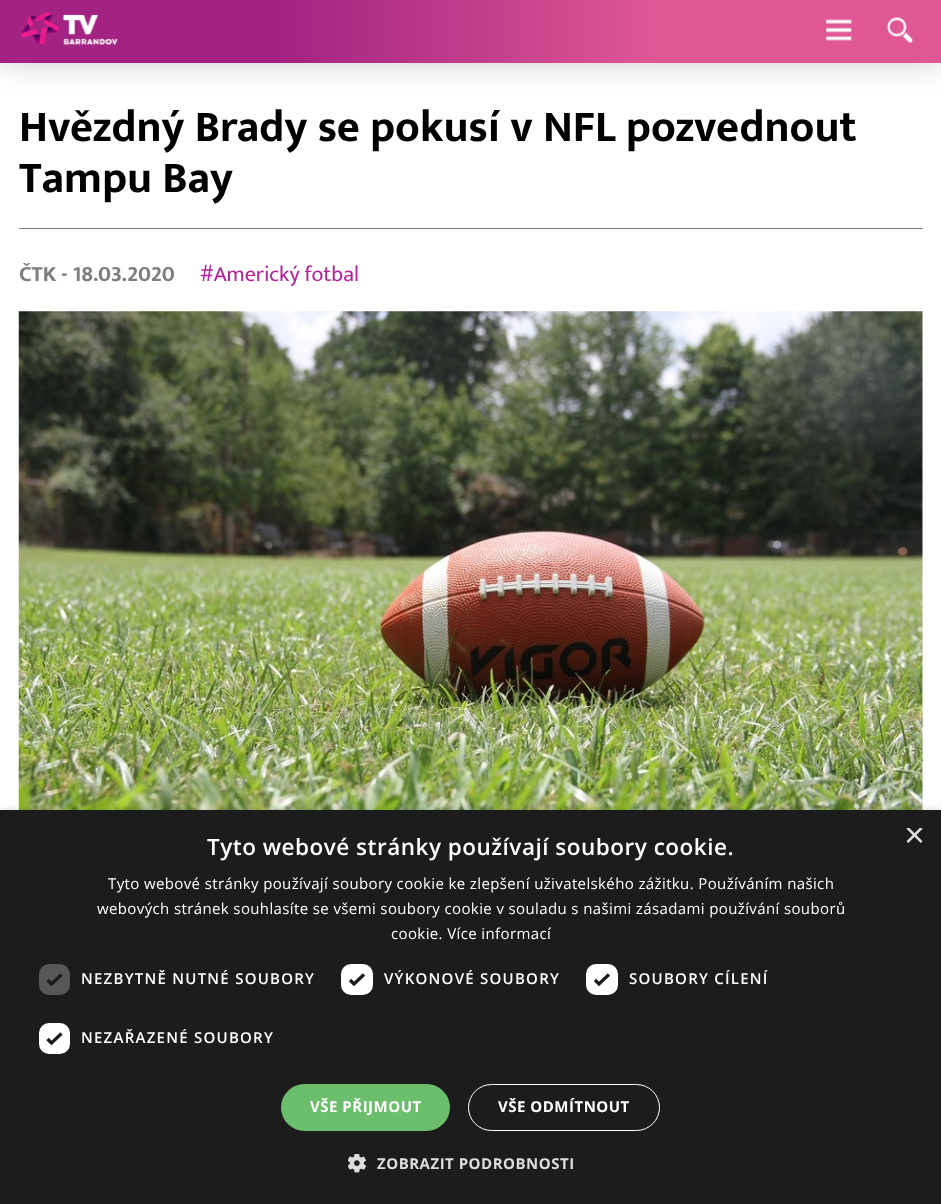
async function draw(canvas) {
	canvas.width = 941;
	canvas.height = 1204;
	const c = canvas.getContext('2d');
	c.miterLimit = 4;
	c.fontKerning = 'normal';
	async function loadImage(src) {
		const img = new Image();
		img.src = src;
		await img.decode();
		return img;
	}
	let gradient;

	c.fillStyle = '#fff';
	c.fillRect(0, 0, 941, 1204);
	c.fillStyle = '#00000033';
	c.filter = 'blur(15px)';
	c.beginPath();
	c.rect(0, 0, 941, 63);
	c.fill();
	c.filter = 'none';
	gradient = c.createLinearGradient(0, 31, 941, 31);
	gradient.addColorStop(0.3, '#a32382');
	gradient.addColorStop(0.7, '#df5795');
	c.fillStyle = gradient;
	c.fillRect(0, 0, 941, 63);
	c.drawImage(await loadImage('img1.png'), 20, 12, 98, 33);
	c.drawImage(await loadImage('img2.png'), 826, 19, 26, 22);
	c.drawImage(await loadImage('img3.png'), 887, 17, 26, 26);
	c.fillStyle = '#7f7e7f';
	c.fillRect(19, 228, 904, 1);
	c.font = 'bold 44.5px Mukta';
	c.fillStyle = '#000';
	c.fillText('Hvězdný Brady se pokusí v NFL pozvednout', 19, 141);
	c.fillText('Tampu Bay', 19, 192);
	c.font = 'bold 22px Mukta';
	c.fillStyle = '#7f7e7f';
	c.fillText('ČTK - 18.03.2020', 19, 281);
	c.font = '22px Mukta';
	c.fillStyle = '#b5229c';
	c.fillText('#Americký fotbal', 200, 281);
	c.drawImage(await loadImage('img4.png'), 18, 311, 905, 499);
	c.fillStyle = '#00000059';
	c.filter = 'blur(5px)';
	c.beginPath();
	c.rect(1, 813, 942, 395);
	c.fill();
	c.filter = 'none';
	c.fillStyle = '#1c1c1c';
	c.fillRect(0, 810, 941, 394);
	c.save();
	c.beginPath();
	c.rect(904, 828, 19, 18);
	c.clip();
	c.font = '36px Liberation Sans';
	c.fillStyle = '#ddd';
	c.fillText('×', 904, 847);
	c.restore();
	c.letterSpacing = '0.5px';
	c.font = '600 22.5px Open Sans';
	c.fillStyle = '#fff';
	c.fillText('Tyto webové stránky používají soubory cookie.', 207, 855);
	c.letterSpacing = '0.38px';
	c.font = '15px Open Sans';
	for (const [text, x, y] of [
		['Tyto webové stránky používají soubory cookie ke zlepšení uživatelského zážitku. Používáním našich', 108, 889],
		['webových stránek souhlasíte se všemi soubory cookie v souladu s našimi zásadami používání souborů', 97, 914],
		['cookie. Více informací', 391, 939],
	]) {
		c.fillText(text, x, y);
	}
	c.fillStyle = '#575757';
	c.beginPath();
	c.roundRect(39, 964, 31, 31, 10);
	c.fill();
	c.beginPath();
	c.moveTo(47.5, 980);
	c.lineTo(51.5, 984);
	c.lineTo(61.5, 974.5);
	c.strokeStyle = '#1c1c1c';
	c.lineWidth = 3.3;
	c.stroke();
	c.letterSpacing = '1.25px';
	c.font = '600 15px Open Sans';
	c.fillStyle = '#fff';
	c.fillText('NEZBYTNĚ NUTNÉ SOUBORY', 81, 984);
	c.beginPath();
	c.roundRect(342.5, 965.5, 29, 28, 8.5);
	c.fill();
	c.strokeStyle = '#fff';
	c.lineWidth = 3;
	c.stroke();
	c.beginPath();
	c.moveTo(350, 980);
	c.lineTo(354, 984);
	c.lineTo(364, 974.5);
	c.strokeStyle = '#1c1c1c';
	c.lineWidth = 3.3;
	c.stroke();
	c.fillText('VÝKONOVÉ SOUBORY', 384, 984);
	c.beginPath();
	c.roundRect(587.5, 965.5, 29, 28, 8.5);
	c.fill();
	c.strokeStyle = '#fff';
	c.lineWidth = 3;
	c.stroke();
	c.beginPath();
	c.moveTo(595, 980);
	c.lineTo(599, 984);
	c.lineTo(609, 974.5);
	c.strokeStyle = '#1c1c1c';
	c.lineWidth = 3.3;
	c.stroke();
	c.fillText('SOUBORY CÍLENÍ', 629, 984);
	c.beginPath();
	c.roundRect(40.5, 1024.5, 28, 28, 8.5);
	c.fill();
	c.strokeStyle = '#fff';
	c.lineWidth = 3;
	c.stroke();
	c.beginPath();
	c.moveTo(47.5, 1039);
	c.lineTo(51.5, 1043);
	c.lineTo(61.5, 1033.5);
	c.strokeStyle = '#1c1c1c';
	c.lineWidth = 3.3;
	c.stroke();
	c.fillText('NEZAŘAZENÉ SOUBORY', 81, 1043);
	c.fillStyle = '#6bbe6b';
	c.beginPath();
	c.roundRect(281, 1084, 169, 47, 23.5);
	c.fill();
	c.letterSpacing = '0.5px';
	c.font = 'bold 15px Open Sans';
	c.fillStyle = '#fff';
	c.fillText('VŠE PŘIJMOUT', 310, 1112);
	c.beginPath();
	c.roundRect(468.5, 1084.5, 191, 46, 23);
	c.strokeStyle = '#fff';
	c.lineWidth = 1;
	c.stroke();
	c.fillText('VŠE ODMÍTNOUT', 498, 1112);
	c.drawImage(await loadImage('img5.png'), 348, 1154, 18, 19);
	c.fillStyle = '#ddd';
	c.fillText('ZOBRAZIT PODROBNOSTI', 377, 1169);
}

draw(document.querySelector('canvas'));
